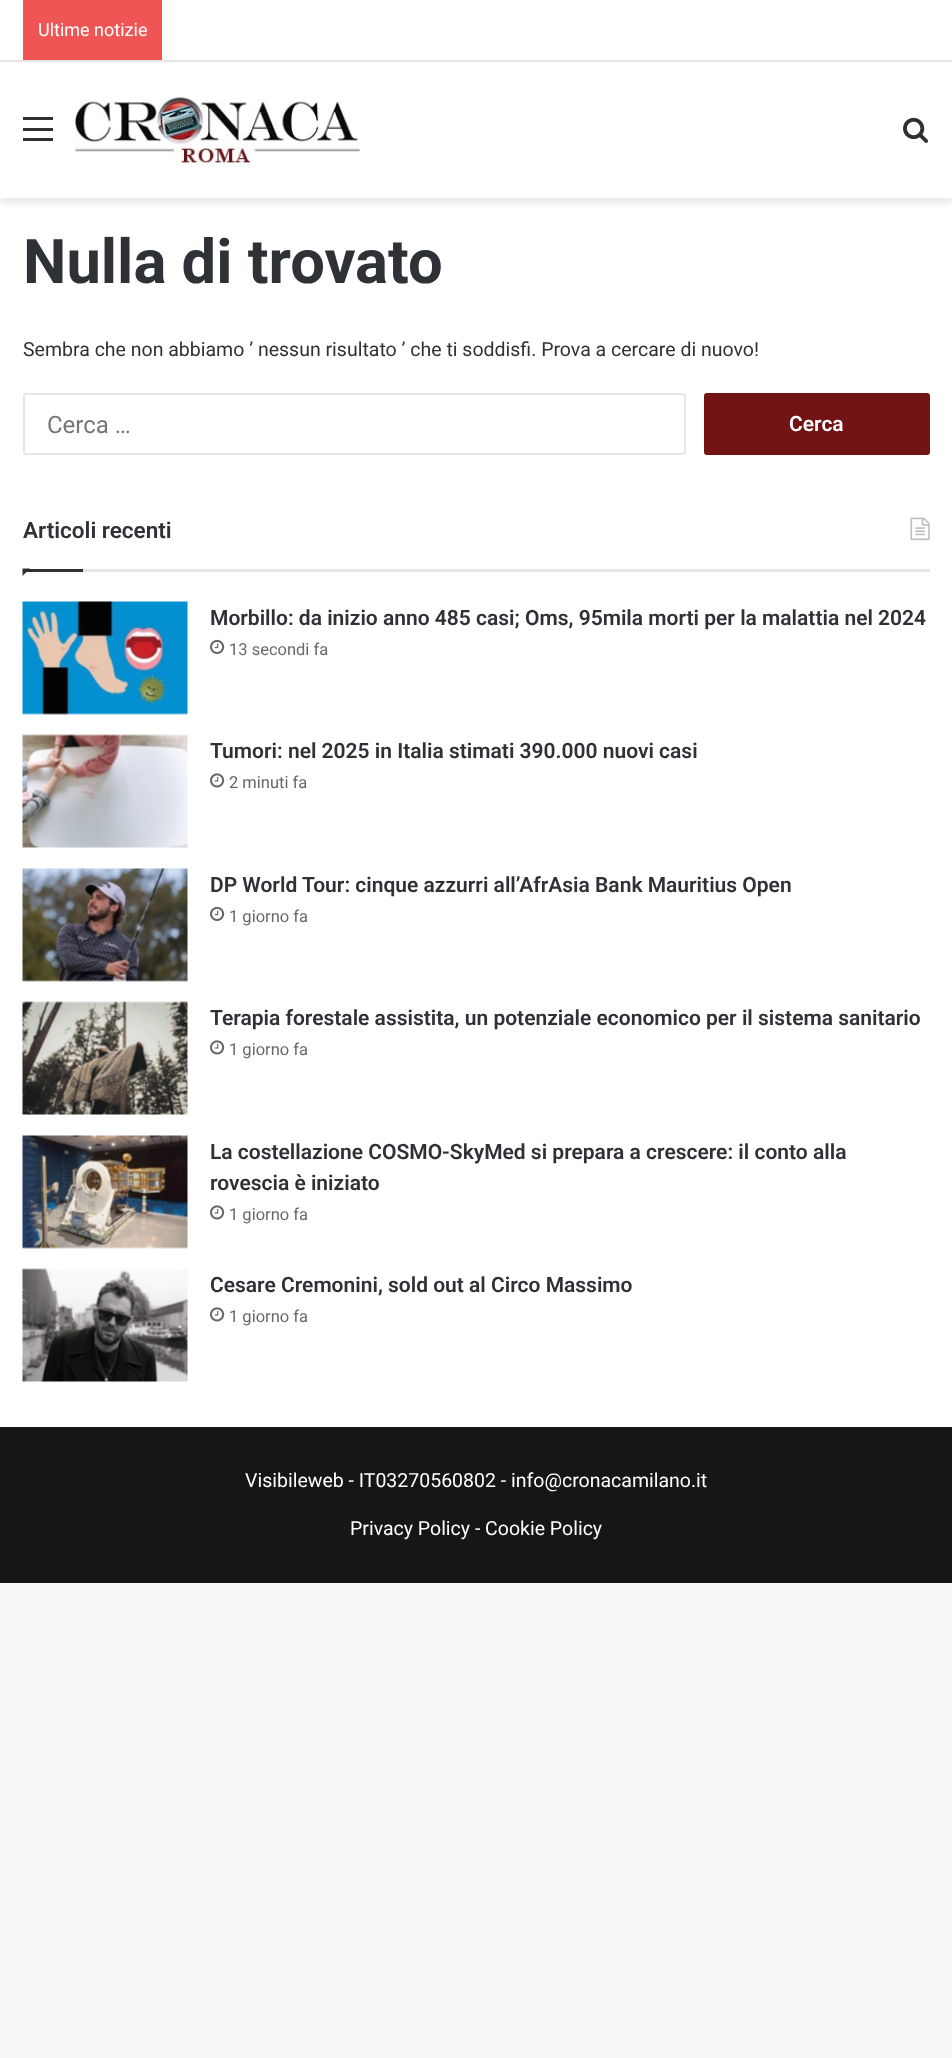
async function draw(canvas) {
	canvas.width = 952;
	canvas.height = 2058;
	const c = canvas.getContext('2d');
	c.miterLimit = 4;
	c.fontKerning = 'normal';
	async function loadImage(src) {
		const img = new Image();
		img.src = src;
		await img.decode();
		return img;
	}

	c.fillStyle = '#f7f7f7';
	c.fillRect(0, 0, 952, 2058);
	c.fillStyle = '#fff';
	c.fillRect(0, 62, 952, 1365);
	c.save();
	c.beginPath();
	c.rect(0, 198, 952, 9);
	c.clip();
	c.fillStyle = '#0000001a';
	c.filter = 'blur(5px)';
	c.beginPath();
	c.rect(0, 66, 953, 137);
	c.fill();
	c.filter = 'none';
	c.restore();
	for (const [x, y, w, h, color] of [
		[0, 0, 952, 60, '#fff'],
		[0, 60, 952, 2, '#e6e6e6'],
		[23, 0, 139, 60, '#f05555'],
	]) {
		c.fillStyle = color;
		c.fillRect(x, y, w, h);
	}
	c.font = '18px Roboto';
	c.fillStyle = '#fff';
	c.fillText('Ultime notizie', 38, 36);
	for (const [x, y, w, h, color] of [
		[23, 128, 30, 3, '#2c2f34'],
		[23, 117, 30, 3, '#2c2f34'],
		[23, 138, 30, 3, '#2c2f34'],
	]) {
		c.fillStyle = color;
		c.fillRect(x, y, w, h);
	}
	c.drawImage(await loadImage('img1.png'), 75, 97, 285, 70);
	c.drawImage(await loadImage('img2.png'), 903, 117, 25, 26);
	c.font = 'bold 61.5px Roboto';
	c.fillStyle = '#2e3136';
	c.fillText('Nulla di trovato', 23, 283);
	c.font = '19.5px Roboto';
	c.fillText('Sembra che non abbiamo ’ nessun risultato ’ che ti soddisfi. Prova a cercare di nuovo!', 23, 356);
	c.beginPath();
	c.roundRect(24, 394, 661, 60, 2);
	c.strokeStyle = '#e6e6e6';
	c.lineWidth = 2;
	c.stroke();
	c.font = '24px Roboto';
	c.fillStyle = '#767676';
	c.fillText('Cerca …', 47, 433);
	c.fillStyle = '#721316';
	c.beginPath();
	c.roundRect(704, 393, 226, 62, 3);
	c.fill();
	c.font = '600 21px Roboto';
	c.fillStyle = '#fff';
	c.fillText('Cerca', 789, 431);
	c.fillStyle = '#e6e6e6';
	c.fillRect(83, 569, 847, 3);
	c.font = '600 22.5px Roboto';
	c.fillStyle = '#2e3136';
	c.fillText('Articoli recenti', 23, 538);
	c.drawImage(await loadImage('img3.png'), 910, 517, 20, 24);
	c.beginPath();
	c.moveTo(22.5, 568.5);
	c.lineTo(30, 568.5);
	c.lineTo(22.5, 576);
	c.closePath();
	c.fill();
	c.fillRect(23, 569, 60, 3);
	c.drawImage(await loadImage('img4.png'), 22, 601, 166, 114);
	c.font = '600 21px Roboto';
	c.fillText('Morbillo: da inizio anno 485 casi; Oms, 95mila morti per la malattia nel 2024', 210, 625);
	c.drawImage(await loadImage('img5.png'), 210, 639, 15, 15);
	c.font = '16.5px Roboto';
	c.fillStyle = '#686868';
	c.fillText('13 secondi fa', 229, 655);
	c.drawImage(await loadImage('img6.png'), 22, 734, 166, 114);
	c.font = '600 21px Roboto';
	c.fillStyle = '#2e3136';
	c.fillText('Tumori: nel 2025 in Italia stimati 390.000 nuovi casi', 210, 758);
	c.drawImage(await loadImage('img7.png'), 210, 773, 15, 15);
	c.font = '16.5px Roboto';
	c.fillStyle = '#686868';
	c.fillText('2 minuti fa', 229, 788);
	c.drawImage(await loadImage('img8.png'), 22, 868, 166, 114);
	c.font = '600 21px Roboto';
	c.fillStyle = '#2e3136';
	c.fillText('DP World Tour: cinque azzurri all’AfrAsia Bank Mauritius Open', 210, 892);
	c.drawImage(await loadImage('img5.png'), 210, 906, 15, 15);
	c.font = '16.5px Roboto';
	c.fillStyle = '#686868';
	c.fillText('1 giorno fa', 229, 922);
	c.drawImage(await loadImage('img9.png'), 22, 1001, 166, 114);
	c.font = '600 21px Roboto';
	c.fillStyle = '#2e3136';
	c.fillText('Terapia forestale assistita, un potenziale economico per il sistema sanitario', 210, 1025);
	c.drawImage(await loadImage('img7.png'), 210, 1040, 15, 15);
	c.font = '16.5px Roboto';
	c.fillStyle = '#686868';
	c.fillText('1 giorno fa', 229, 1055);
	c.drawImage(await loadImage('img10.png'), 22, 1135, 166, 114);
	c.font = '600 21px Roboto';
	c.fillStyle = '#2e3136';
	c.fillText('La costellazione COSMO-SkyMed si prepara a crescere: il conto alla', 210, 1159);
	c.fillText('rovescia è iniziato', 210, 1190);
	c.drawImage(await loadImage('img7.png'), 210, 1205, 15, 15);
	c.font = '16.5px Roboto';
	c.fillStyle = '#686868';
	c.fillText('1 giorno fa', 229, 1220);
	c.drawImage(await loadImage('img11.png'), 22, 1268, 166, 114);
	c.font = '600 21px Roboto';
	c.fillStyle = '#2e3136';
	c.fillText('Cesare Cremonini, sold out al Circo Massimo', 210, 1292);
	c.drawImage(await loadImage('img7.png'), 210, 1307, 15, 15);
	c.font = '16.5px Roboto';
	c.fillStyle = '#686868';
	c.fillText('1 giorno fa', 229, 1322);
	c.fillStyle = '#161619';
	c.fillRect(0, 1427, 952, 156);
	c.font = '19.5px Roboto';
	c.fillStyle = '#fff';
	c.fillText('Visibileweb - IT03270560802 - info@cronacamilano.it', 245, 1487);
	c.fillText('Privacy Policy - Cookie Policy', 350, 1535);
}

draw(document.querySelector('canvas'));
